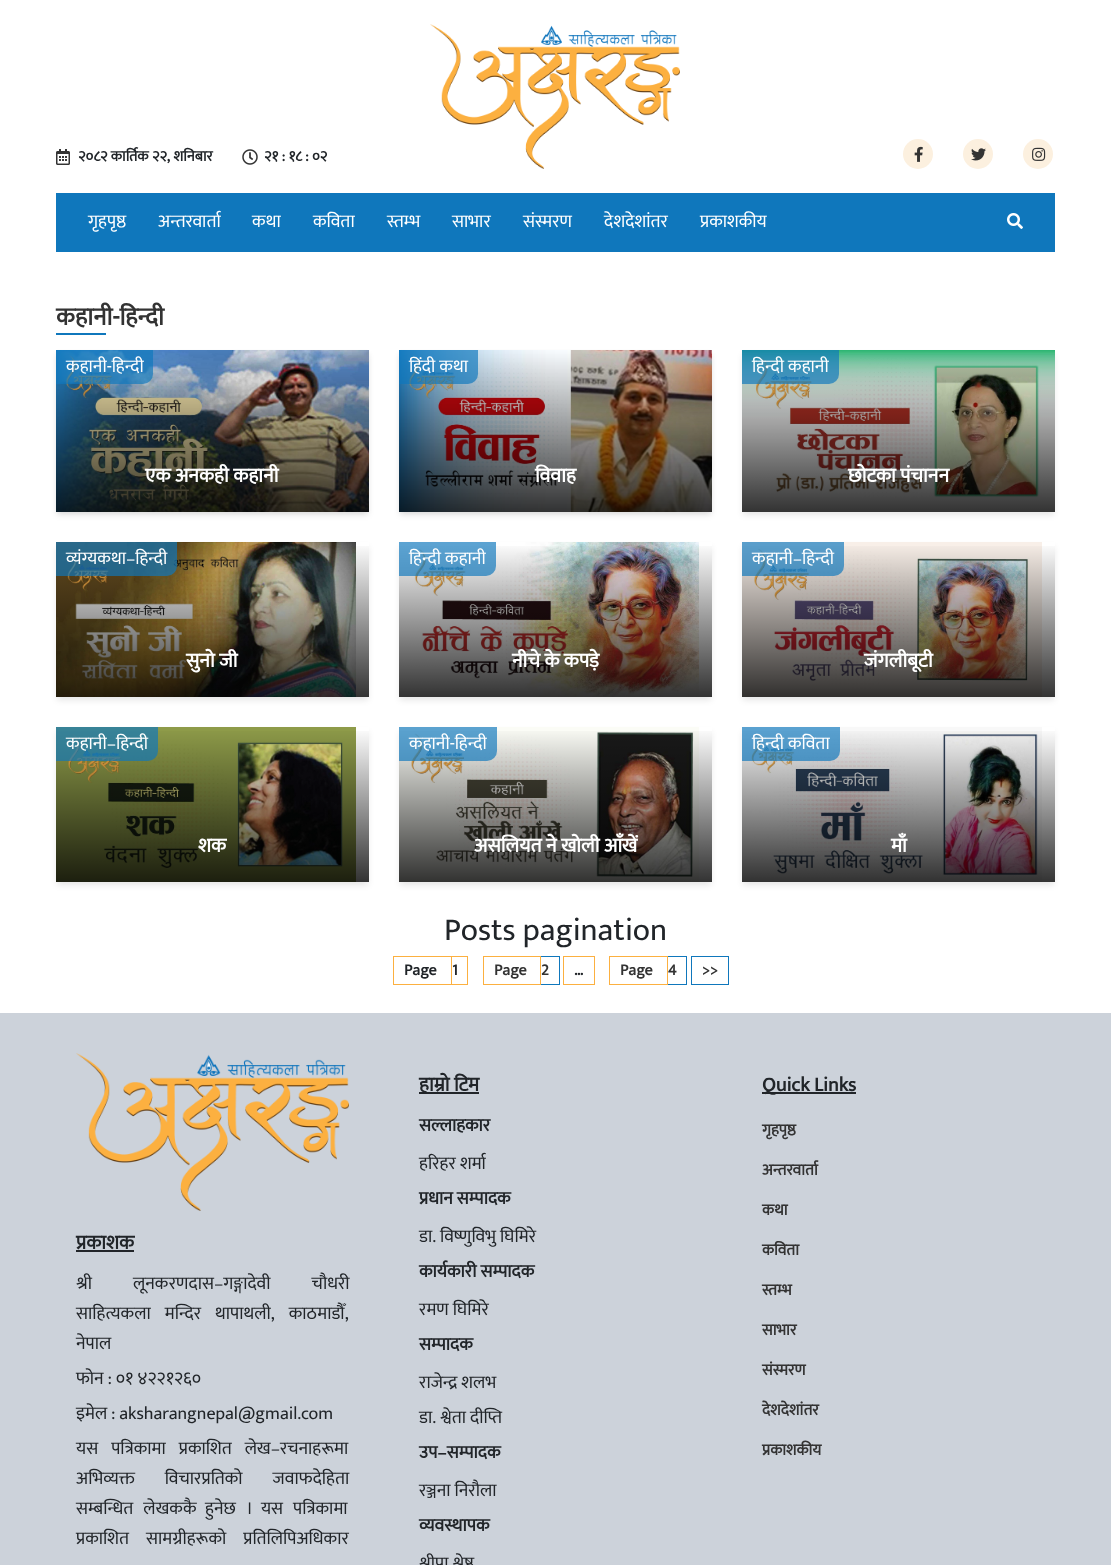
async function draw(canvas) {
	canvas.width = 1111;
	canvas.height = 1565;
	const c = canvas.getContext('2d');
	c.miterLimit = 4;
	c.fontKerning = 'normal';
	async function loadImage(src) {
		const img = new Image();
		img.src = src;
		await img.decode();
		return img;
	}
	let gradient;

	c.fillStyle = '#fff';
	c.fillRect(0, 0, 1111, 1565);
	c.drawImage(await loadImage('img1.png'), 56, 149, 14, 16);
	c.font = 'bold 15px Mukta';
	c.fillStyle = '#212529';
	c.fillText('२०८२ कार्तिक २२, शनिबार', 78, 161);
	c.drawImage(await loadImage('img2.png'), 242, 149, 16, 16);
	c.fillText('२१ : १८ : ०२', 264, 161);
	c.drawImage(await loadImage('img3.png'), 430, 24, 250, 145);
	c.fillStyle = '#fcf0df';
	c.beginPath();
	c.arc(918, 154, 15, 0, 2 * Math.PI);
	c.fill();
	c.drawImage(await loadImage('img4.png'), 914, 146, 9, 16);
	c.beginPath();
	c.arc(978, 154, 15, 0, 2 * Math.PI);
	c.fill();
	c.drawImage(await loadImage('img5.png'), 971, 148, 15, 13);
	c.beginPath();
	c.arc(1038, 154, 15, 0, 2 * Math.PI);
	c.fill();
	c.drawImage(await loadImage('img6.png'), 1032, 147, 14, 14);
	c.fillStyle = '#0f77bc';
	c.fillRect(56, 193, 999, 59);
	c.font = '18px Mukta';
	c.fillStyle = '#fff';
	for (const [text, x, y] of [
		['गृहपृष्ठ', 88, 227],
		['अन्तरवार्ता', 158, 227],
		['कथा', 252, 227],
		['कविता', 313, 227],
		['स्तम्भ', 387, 227],
		['साभार', 452, 227],
		['संस्मरण', 523, 227],
		['देशदेशांतर', 604, 227],
		['प्रकाशकीय', 700, 227],
	]) {
		c.fillText(text, x, y);
	}
	c.drawImage(await loadImage('img7.png'), 1007, 213, 16, 16);
	c.font = 'bold 25px Mukta';
	c.fillStyle = '#333';
	c.fillText('कहानी-हिन्दी', 56, 325);
	c.fillStyle = '#0f77bc';
	c.fillRect(56, 333, 50, 2);
	c.fillStyle = '#0000000f';
	c.filter = 'blur(2px)';
	c.beginPath();
	c.rect(57, 353, 311, 160);
	c.fill();
	c.filter = 'none';
	c.fillStyle = '#0000001a';
	c.filter = 'blur(3px)';
	c.beginPath();
	c.rect(57, 355, 311, 160);
	c.fill();
	c.filter = 'none';
	c.drawImage(await loadImage('img8.png'), 56, 350, 313, 162);
	c.fillStyle = '#0f77bcad';
	c.beginPath();
	c.roundRect(56, 350, 97, 34, [0, 0, 10, 0]);
	c.fill();
	c.font = '18px Mukta';
	c.fillStyle = '#fff';
	c.fillText('कहानी-हिन्दी', 66, 372);
	c.font = 'bold 20px Mukta';
	c.fillText('एक अनकही कहानी', 145, 482);
	c.fillStyle = '#0000000f';
	c.filter = 'blur(2px)';
	c.beginPath();
	c.rect(400, 353, 311, 160);
	c.fill();
	c.filter = 'none';
	c.fillStyle = '#0000001a';
	c.filter = 'blur(3px)';
	c.beginPath();
	c.rect(400, 355, 311, 160);
	c.fill();
	c.filter = 'none';
	c.drawImage(await loadImage('img9.png'), 399, 350, 313, 162);
	c.fillStyle = '#0f77bcad';
	c.beginPath();
	c.roundRect(399, 350, 79, 34, [0, 0, 10, 0]);
	c.fill();
	c.font = '18px Mukta';
	c.fillStyle = '#fff';
	c.fillText('हिंदी कथा', 409, 372);
	c.font = 'bold 20px Mukta';
	c.fillText('विवाह', 535, 482);
	c.save();
	c.beginPath();
	c.moveTo(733, 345);
	c.lineTo(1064, 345);
	c.lineTo(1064, 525);
	c.lineTo(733, 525);
	c.closePath();
	c.moveTo(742, 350);
	c.lineTo(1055, 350);
	c.lineTo(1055, 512);
	c.lineTo(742, 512);
	c.closePath();
	c.clip('evenodd');
	c.fillStyle = '#0000001a';
	c.filter = 'blur(3px)';
	c.beginPath();
	c.rect(743, 355, 311, 160);
	c.fill();
	c.filter = 'none';
	c.restore();
	c.drawImage(await loadImage('img10.png'), 742, 350, 313, 148);
	gradient = c.createLinearGradient(899, 350, 899, 512);
	gradient.addColorStop(0, '#00000000');
	gradient.addColorStop(1, '#000000cc');
	c.fillStyle = gradient;
	c.fillRect(742, 354, 313, 158);
	c.fillStyle = '#0f77bcad';
	c.beginPath();
	c.roundRect(742, 350, 97, 34, [0, 0, 10, 0]);
	c.fill();
	c.font = '18px Mukta';
	c.fillStyle = '#fff';
	c.fillText('हिन्दी कहानी', 752, 372);
	c.font = 'bold 20px Mukta';
	c.fillText('छोटका पंचानन', 848, 482);
	c.save();
	c.beginPath();
	c.moveTo(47, 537);
	c.lineTo(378, 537);
	c.lineTo(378, 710);
	c.lineTo(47, 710);
	c.closePath();
	c.moveTo(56, 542);
	c.lineTo(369, 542);
	c.lineTo(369, 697);
	c.lineTo(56, 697);
	c.closePath();
	c.clip('evenodd');
	c.fillStyle = '#0000001a';
	c.filter = 'blur(3px)';
	c.beginPath();
	c.rect(57, 547, 311, 153);
	c.fill();
	c.filter = 'none';
	c.restore();
	c.drawImage(await loadImage('img11.png'), 56, 542, 300, 155);
	gradient = c.createLinearGradient(213, 542, 213, 697);
	gradient.addColorStop(0, '#00000000');
	gradient.addColorStop(1, '#000000cc');
	c.fillStyle = gradient;
	c.fillRect(56, 546, 313, 151);
	c.fillStyle = '#0f77bcad';
	c.beginPath();
	c.roundRect(56, 542, 121, 34, [0, 0, 10, 0]);
	c.fill();
	c.font = '18px Mukta';
	c.fillStyle = '#fff';
	c.fillText('व्यंग्यकथा–हिन्दी', 66, 564);
	c.font = 'bold 20px Mukta';
	c.fillText('सुनो जी', 186, 667);
	c.save();
	c.beginPath();
	c.moveTo(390, 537);
	c.lineTo(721, 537);
	c.lineTo(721, 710);
	c.lineTo(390, 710);
	c.closePath();
	c.moveTo(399, 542);
	c.lineTo(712, 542);
	c.lineTo(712, 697);
	c.lineTo(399, 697);
	c.closePath();
	c.clip('evenodd');
	c.fillStyle = '#0000001a';
	c.filter = 'blur(3px)';
	c.beginPath();
	c.rect(400, 547, 311, 153);
	c.fill();
	c.filter = 'none';
	c.restore();
	c.drawImage(await loadImage('img12.png'), 414, 542, 285, 155);
	gradient = c.createLinearGradient(556, 542, 556, 697);
	gradient.addColorStop(0, '#00000000');
	gradient.addColorStop(1, '#000000cc');
	c.fillStyle = gradient;
	c.fillRect(399, 546, 313, 151);
	c.fillStyle = '#0f77bcad';
	c.beginPath();
	c.roundRect(399, 542, 97, 34, [0, 0, 10, 0]);
	c.fill();
	c.font = '18px Mukta';
	c.fillStyle = '#fff';
	c.fillText('हिन्दी कहानी', 409, 564);
	c.font = 'bold 20px Mukta';
	c.fillText('नीचे के कपड़े', 512, 667);
	c.save();
	c.beginPath();
	c.moveTo(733, 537);
	c.lineTo(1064, 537);
	c.lineTo(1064, 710);
	c.lineTo(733, 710);
	c.closePath();
	c.moveTo(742, 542);
	c.lineTo(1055, 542);
	c.lineTo(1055, 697);
	c.lineTo(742, 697);
	c.closePath();
	c.clip('evenodd');
	c.fillStyle = '#0000001a';
	c.filter = 'blur(3px)';
	c.beginPath();
	c.rect(743, 547, 311, 153);
	c.fill();
	c.filter = 'none';
	c.restore();
	c.drawImage(await loadImage('img13.png'), 742, 542, 300, 155);
	gradient = c.createLinearGradient(899, 542, 899, 697);
	gradient.addColorStop(0, '#00000000');
	gradient.addColorStop(1, '#000000cc');
	c.fillStyle = gradient;
	c.fillRect(742, 546, 313, 151);
	c.fillStyle = '#0f77bcad';
	c.beginPath();
	c.roundRect(742, 542, 102, 34, [0, 0, 10, 0]);
	c.fill();
	c.font = '18px Mukta';
	c.fillStyle = '#fff';
	c.fillText('कहानी–हिन्दी', 752, 564);
	c.font = 'bold 20px Mukta';
	c.fillText('जंगलीबूटी', 864, 667);
	c.save();
	c.beginPath();
	c.moveTo(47, 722);
	c.lineTo(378, 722);
	c.lineTo(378, 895);
	c.lineTo(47, 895);
	c.closePath();
	c.moveTo(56, 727);
	c.lineTo(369, 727);
	c.lineTo(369, 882);
	c.lineTo(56, 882);
	c.closePath();
	c.clip('evenodd');
	c.fillStyle = '#0000001a';
	c.filter = 'blur(3px)';
	c.beginPath();
	c.rect(57, 732, 311, 153);
	c.fill();
	c.filter = 'none';
	c.restore();
	c.drawImage(await loadImage('img14.png'), 56, 727, 300, 155);
	gradient = c.createLinearGradient(213, 727, 213, 882);
	gradient.addColorStop(0, '#00000000');
	gradient.addColorStop(1, '#000000cc');
	c.fillStyle = gradient;
	c.fillRect(56, 731, 313, 151);
	c.fillStyle = '#0f77bcad';
	c.beginPath();
	c.roundRect(56, 727, 102, 34, [0, 0, 10, 0]);
	c.fill();
	c.font = '18px Mukta';
	c.fillStyle = '#fff';
	c.fillText('कहानी–हिन्दी', 66, 749);
	c.font = 'bold 20px Mukta';
	c.fillText('शक', 198, 852);
	c.save();
	c.beginPath();
	c.moveTo(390, 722);
	c.lineTo(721, 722);
	c.lineTo(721, 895);
	c.lineTo(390, 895);
	c.closePath();
	c.moveTo(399, 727);
	c.lineTo(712, 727);
	c.lineTo(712, 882);
	c.lineTo(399, 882);
	c.closePath();
	c.clip('evenodd');
	c.fillStyle = '#0000001a';
	c.filter = 'blur(3px)';
	c.beginPath();
	c.rect(400, 732, 311, 153);
	c.fill();
	c.filter = 'none';
	c.restore();
	c.drawImage(await loadImage('img15.png'), 399, 727, 300, 155);
	gradient = c.createLinearGradient(556, 727, 556, 882);
	gradient.addColorStop(0, '#00000000');
	gradient.addColorStop(1, '#000000cc');
	c.fillStyle = gradient;
	c.fillRect(399, 731, 313, 151);
	c.fillStyle = '#0f77bcad';
	c.beginPath();
	c.roundRect(399, 727, 98, 34, [0, 0, 10, 0]);
	c.fill();
	c.font = '18px Mukta';
	c.fillStyle = '#fff';
	c.fillText('कहानी-हिन्दी', 409, 749);
	c.font = 'bold 20px Mukta';
	c.fillText('असलियत ने खोली आँखें', 474, 852);
	c.save();
	c.beginPath();
	c.moveTo(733, 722);
	c.lineTo(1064, 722);
	c.lineTo(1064, 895);
	c.lineTo(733, 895);
	c.closePath();
	c.moveTo(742, 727);
	c.lineTo(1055, 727);
	c.lineTo(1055, 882);
	c.lineTo(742, 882);
	c.closePath();
	c.clip('evenodd');
	c.fillStyle = '#0000001a';
	c.filter = 'blur(3px)';
	c.beginPath();
	c.rect(743, 732, 311, 153);
	c.fill();
	c.filter = 'none';
	c.restore();
	c.drawImage(await loadImage('img16.png'), 742, 727, 300, 155);
	gradient = c.createLinearGradient(899, 727, 899, 882);
	gradient.addColorStop(0, '#00000000');
	gradient.addColorStop(1, '#000000cc');
	c.fillStyle = gradient;
	c.fillRect(742, 731, 313, 151);
	c.fillStyle = '#0f77bcad';
	c.beginPath();
	c.roundRect(742, 727, 98, 34, [0, 0, 10, 0]);
	c.fill();
	c.font = '18px Mukta';
	c.fillStyle = '#fff';
	c.fillText('हिन्दी कविता', 752, 749);
	c.font = 'bold 20px Mukta';
	c.fillText('माँ', 891, 852);
	c.font = '32px Mukta';
	c.fillStyle = '#212529';
	c.fillText('Posts pagination', 444, 940);
	c.strokeStyle = '#fcb040';
	c.strokeRect(393.5, 956.5, 58, 28);
	c.font = 'bold 16px Mukta';
	c.fillText('Page', 404, 975);
	c.fillText('1', 452, 975);
	for (const [x, y, w, h, color] of [
		[452, 956, 16, 1, '#fcb040'],
		[467, 956, 1, 29, '#fcb040'],
		[452, 984, 16, 1, '#fcb040'],
	]) {
		c.fillStyle = color;
		c.fillRect(x, y, w, h);
	}
	c.strokeRect(483.5, 956.5, 57, 28);
	c.fillStyle = '#333';
	c.fillText('Page', 494, 975);
	c.fillText('2', 541, 975);
	for (const [x, y, w, h, color] of [
		[541, 956, 19, 1, '#0f77bc'],
		[559, 956, 1, 29, '#0f77bc'],
		[541, 984, 19, 1, '#0f77bc'],
	]) {
		c.fillStyle = color;
		c.fillRect(x, y, w, h);
	}
	c.strokeRect(563.5, 956.5, 31, 28);
	c.fillStyle = '#212529';
	c.fillText('…', 574, 975);
	c.strokeRect(609.5, 956.5, 58, 28);
	c.fillStyle = '#333';
	c.fillText('Page', 620, 975);
	c.fillText('4', 668, 975);
	for (const [x, y, w, h, color] of [
		[668, 956, 19, 1, '#0f77bc'],
		[686, 956, 1, 29, '#0f77bc'],
		[668, 984, 19, 1, '#0f77bc'],
	]) {
		c.fillStyle = color;
		c.fillRect(x, y, w, h);
	}
	c.strokeStyle = '#0f77bc';
	c.strokeRect(691.5, 956.5, 37, 28);
	c.fillStyle = '#333';
	c.fillText('>>', 702, 975);
	c.fillStyle = '#ccd2da';
	c.fillRect(0, 1013, 1111, 552);
	c.drawImage(await loadImage('img17.png'), 76, 1053, 273, 158);
	c.font = 'bold 20px Mukta';
	c.fillStyle = '#212529';
	c.fillText('प्रकाशक', 76, 1249);
	c.fillRect(76, 1250, 58, 2);
	c.wordSpacing = '37px';
	c.font = '18px Mukta';
	c.fillText('श्री लूनकरणदास–गङ्गादेवी चौधरी', 76, 1289);
	c.wordSpacing = '10px';
	c.fillText('साहित्यकला मन्दिर थापाथली, काठमाडौँ,', 76, 1319);
	c.wordSpacing = '0px';
	for (const [text, x, y] of [
		['नेपाल', 76, 1349],
		['फोन : ०१ ४२२१२६०', 76, 1384],
		['इमेल : aksharangnepal@gmail.com', 76, 1419],
	]) {
		c.fillText(text, x, y);
	}
	c.wordSpacing = '9px';
	c.fillText('यस पत्रिकामा प्रकाशित लेख–रचनाहरूमा', 76, 1454);
	c.wordSpacing = '26px';
	c.fillText('अभिव्यक्त विचारप्रतिको जवाफदेहिता', 76, 1484);
	c.wordSpacing = '6px';
	c.fillText('सम्बन्धित लेखककै', 76, 1514);
	c.fillText('हुनेछ । यस पत्रिकामा', 205, 1514);
	c.wordSpacing = '13px';
	c.fillText('प्रकाशित सामग्रीहरूको प्रतिलिपिअधिकार', 76, 1544);
	c.fillRect(419, 1092, 60, 2);
	c.wordSpacing = '0px';
	c.font = 'bold 20px Mukta';
	c.fillText('हाम्रो टिम', 419, 1091);
	c.font = 'bold 18px Mukta';
	c.fillText('सल्लाहकार', 419, 1131);
	c.font = '18px Mukta';
	c.fillText('हरिहर शर्मा', 419, 1169);
	c.font = 'bold 18px Mukta';
	c.fillText('प्रधान सम्पादक', 419, 1204);
	c.font = '18px Mukta';
	c.fillText('डा. विष्णुविभु घिमिरे', 419, 1242);
	c.font = 'bold 18px Mukta';
	c.fillText('कार्यकारी सम्पादक', 419, 1277);
	c.font = '18px Mukta';
	c.fillText('रमण घिमिरे', 419, 1315);
	c.font = 'bold 18px Mukta';
	c.fillText('सम्पादक', 419, 1350);
	c.font = '18px Mukta';
	c.fillText('राजेन्द्र शलभ', 419, 1388);
	c.fillText('डा. श्वेता दीप्ति', 419, 1423);
	c.font = 'bold 18px Mukta';
	c.fillText('उप–सम्पादक', 419, 1458);
	c.font = '18px Mukta';
	c.fillText('रञ्जना निरौला', 419, 1496);
	c.font = 'bold 18px Mukta';
	c.fillText('व्यवस्थापक', 419, 1531);
	c.font = '18px Mukta';
	c.fillText('श्रीपा श्रेष्ठ', 419, 1569);
	c.fillRect(762, 1092, 94, 2);
	c.font = 'bold 20px Mukta';
	c.fillText('Quick Links', 762, 1091);
	c.font = 'bold 16px Mukta';
	c.fillStyle = '#333';
	for (const [text, x, y] of [
		['गृहपृष्ठ', 762, 1135],
		['अन्तरवार्ता', 762, 1175],
		['कथा', 762, 1215],
		['कविता', 762, 1255],
		['स्तम्भ', 762, 1295],
		['साभार', 762, 1335],
		['संस्मरण', 762, 1375],
		['देशदेशांतर', 762, 1415],
		['प्रकाशकीय', 762, 1455],
	]) {
		c.fillText(text, x, y);
	}
}

draw(document.querySelector('canvas'));
